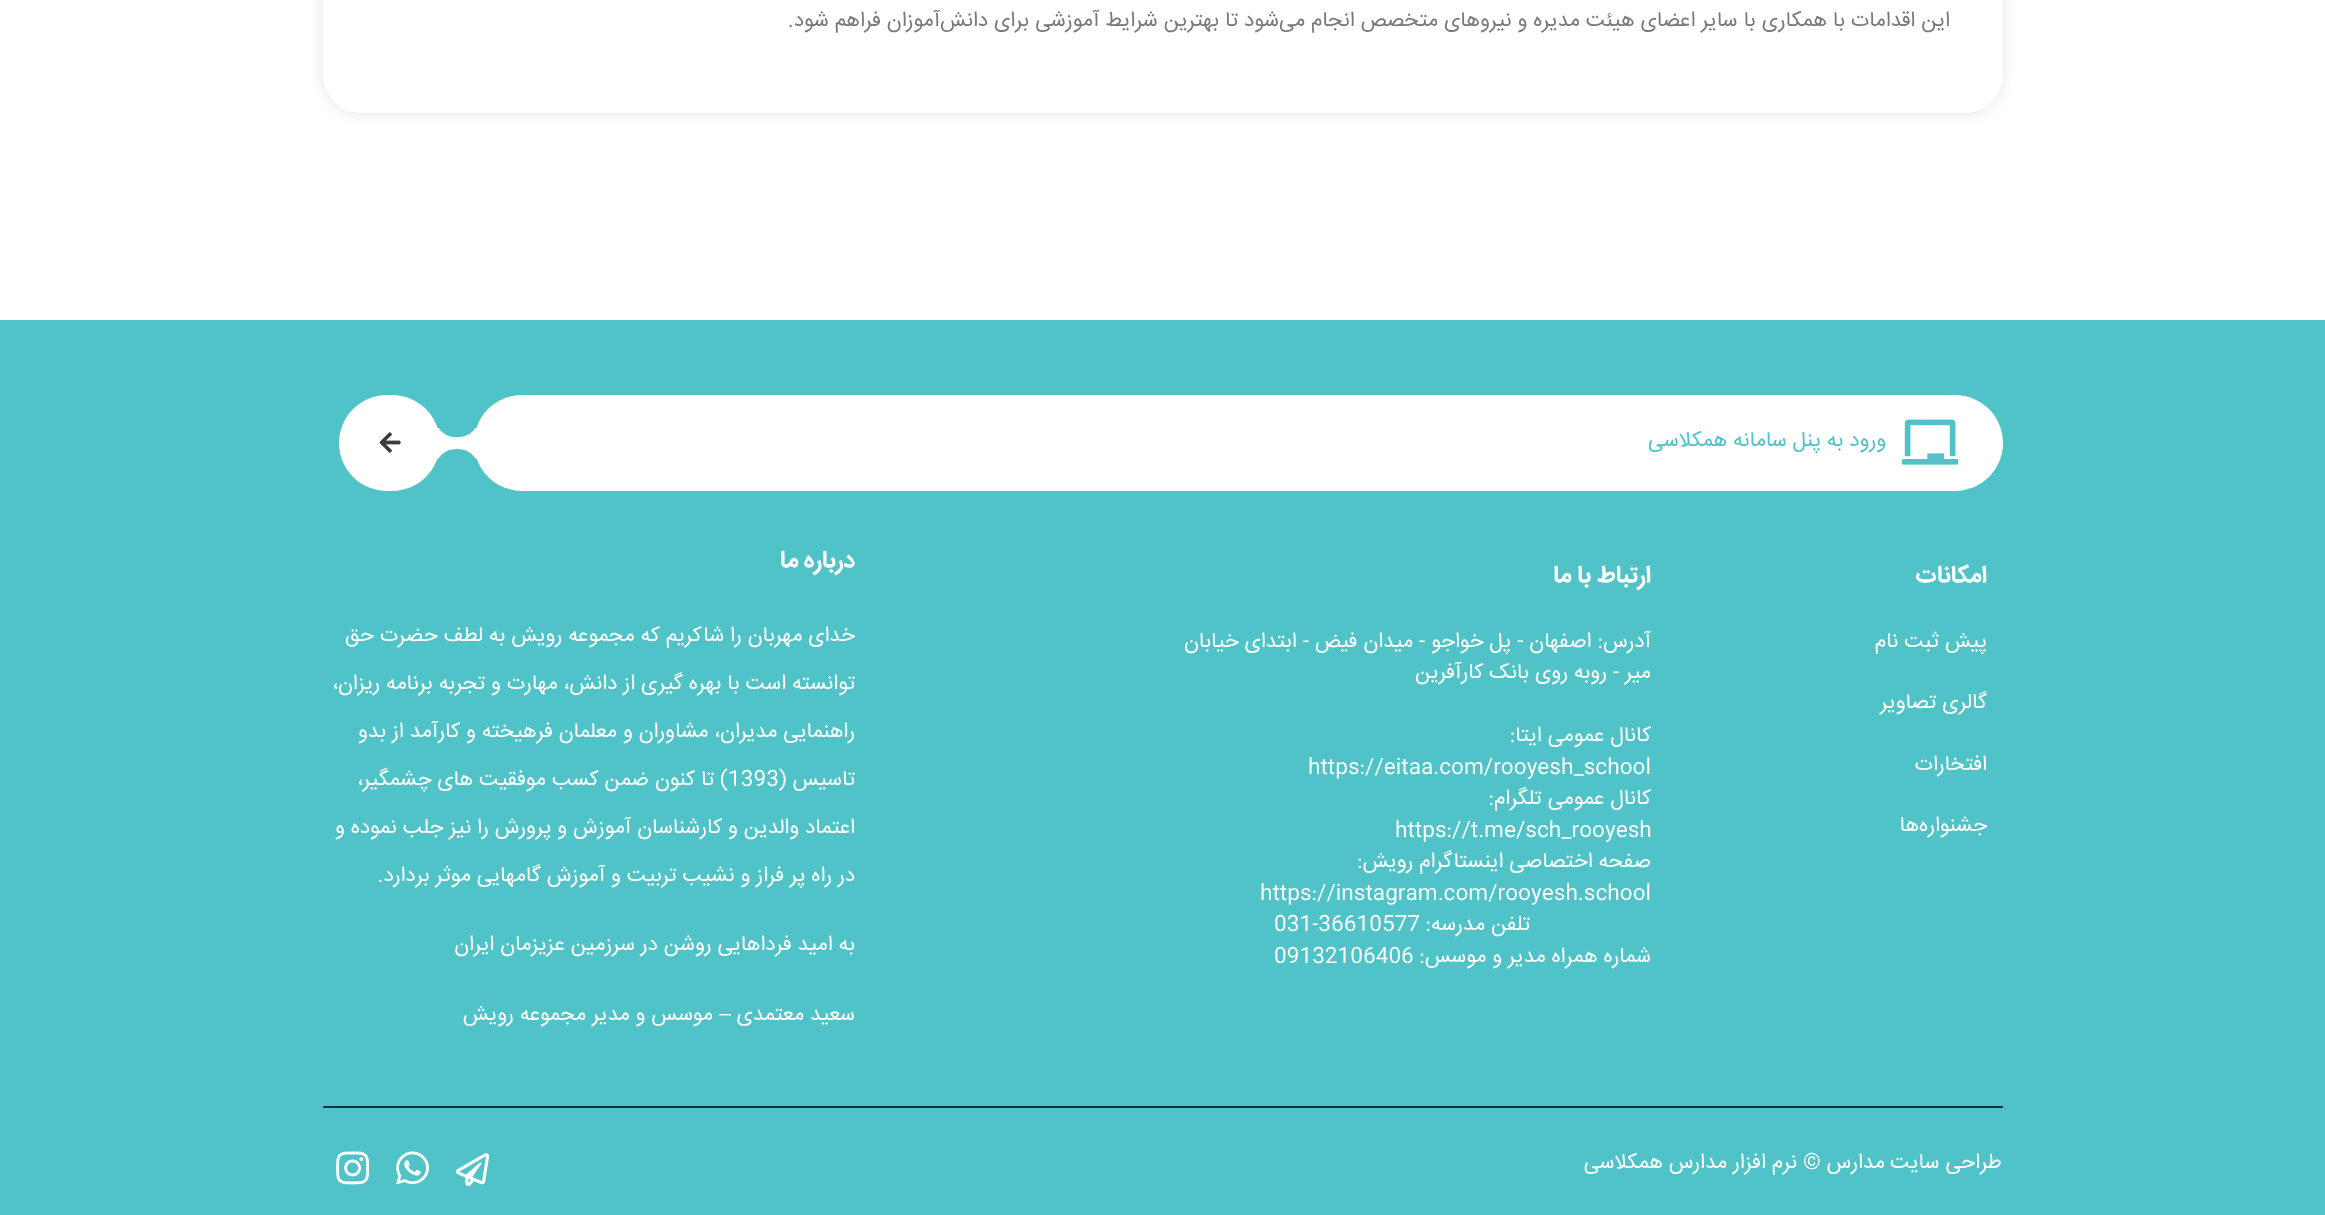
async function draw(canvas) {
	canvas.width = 2325;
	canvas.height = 1215;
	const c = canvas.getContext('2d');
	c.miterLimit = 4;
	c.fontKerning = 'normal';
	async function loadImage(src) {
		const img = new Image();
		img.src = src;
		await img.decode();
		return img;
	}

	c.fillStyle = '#fff';
	c.fillRect(0, 0, 2325, 1215);
	c.save();
	c.beginPath();
	c.moveTo(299, 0);
	c.lineTo(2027, 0);
	c.lineTo(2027, 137);
	c.lineTo(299, 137);
	c.closePath();
	c.moveTo(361, -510);
	c.lineTo(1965, -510);
	c.bezierCurveTo(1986, -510, 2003, -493, 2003, -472);
	c.lineTo(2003, 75);
	c.bezierCurveTo(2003, 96, 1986, 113, 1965, 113);
	c.lineTo(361, 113);
	c.bezierCurveTo(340, 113, 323, 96, 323, 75);
	c.lineTo(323, -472);
	c.bezierCurveTo(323, -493, 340, -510, 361, -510);
	c.closePath();
	c.clip('evenodd');
	c.fillStyle = '#0000001a';
	c.filter = 'blur(7.5px)';
	c.beginPath();
	c.roundRect(323, -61, 1680, 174, 38);
	c.fill();
	c.filter = 'none';
	c.restore();
	c.direction = 'rtl';
	c.font = '21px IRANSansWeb';
	c.fillStyle = '#7a7a7a';
	c.fillText('این اقدامات با همکاری با سایر اعضای هیئت مدیره و نیروهای متخصص انجام می‌شود تا بهترین شرایط آموزشی برای دانش‌آموزان فراهم شود.', 1950, 26);
	c.fillStyle = '#50c3c8';
	c.fillRect(0, 320, 2325, 895);
	c.fillStyle = '#fff';
	c.beginPath();
	c.roundRect(474, 395, 1529, 96, 48);
	c.fill();
	c.drawImage(await loadImage('img1.png'), 1902, 419, 57, 46);
	c.fillStyle = '#50c3c8';
	c.fillText('ورود به پنل سامانه همکلاسی', 1886, 446);
	c.fillStyle = '#fff';
	c.beginPath();
	c.roundRect(339, 395, 101, 96, 48);
	c.fill();
	c.fillRect(437, 428, 40, 31);
	c.fillStyle = '#50c3c8';
	c.beginPath();
	c.roundRect(435, 396, 44, 41, 20.5);
	c.fill();
	c.beginPath();
	c.roundRect(435, 449, 44, 42, 21);
	c.fill();
	c.drawImage(await loadImage('img2.png'), 379, 432, 22, 21);
	c.font = 'bold 24px IRANSansWeb';
	c.fillStyle = '#fff';
	c.fillText('امکانات', 1987, 582);
	c.font = '21px IRANSansWeb';
	for (const [text, x, y] of [
		['پیش ثبت نام', 1987, 647],
		['گالری تصاویر', 1987, 708],
		['افتخارات', 1987, 770],
		['جشنواره‌ها', 1987, 831],
	]) {
		c.fillText(text, x, y);
	}
	c.font = 'bold 24px IRANSansWeb';
	c.fillText('ارتباط با ما', 1651, 582);
	c.font = '21px IRANSansWeb';
	for (const [text, x, y] of [
		['آدرس: اصفهان - پل خواجو - میدان فیض - ابتدای خیابان', 1651, 647],
		['میر - روبه روی بانک کارآفرین', 1651, 678],
		['کانال عمومی ایتا:', 1651, 741],
	]) {
		c.fillText(text, x, y);
	}
	c.direction = 'ltr';
	c.fillText('https://eitaa.com/rooyesh_school', 1308, 773);
	c.direction = 'rtl';
	c.fillText('کانال عمومی تلگرام:', 1651, 804);
	c.direction = 'ltr';
	c.fillText('https://t.me/sch_rooyesh', 1395, 836);
	c.direction = 'rtl';
	c.fillText('صفحه اختصاصی اینستاگرام رویش:', 1651, 867);
	c.direction = 'ltr';
	c.fillText('https://instagram.com/rooyesh.school', 1260, 899);
	c.direction = 'rtl';
	c.fillText('تلفن مدرسه:', 1530, 930);
	c.direction = 'ltr';
	c.fillText('031-36610577', 1274, 930);
	c.direction = 'rtl';
	c.fillText('شماره همراه مدیر و موسس:', 1651, 962);
	c.direction = 'ltr';
	c.fillText('09132106406', 1274, 962);
	c.direction = 'rtl';
	c.font = 'bold 24px IRANSansWeb';
	c.fillText('درباره ما', 855, 567);
	c.font = '21px IRANSansWeb';
	for (const [text, x, y] of [
		['خدای مهربان را شاکریم که مجموعه رویش به لطف حضرت حق', 855, 641],
		['توانسته است با بهره گیری از دانش، مهارت و تجربه برنامه ریزان،', 855, 689],
		['راهنمایی مدیران، مشاوران و معلمان فرهیخته و کارآمد از بدو', 855, 737],
		['تاسیس (', 855, 785],
	]) {
		c.fillText(text, x, y);
	}
	c.direction = 'ltr';
	c.fillText('1393', 728, 785);
	c.direction = 'rtl';
	for (const [text, x, y] of [
		[') تا کنون ضمن کسب موفقیت های چشمگیر،', 728, 785],
		['اعتماد والدین و کارشناسان آموزش و پرورش را نیز جلب نموده و', 855, 833],
		['در راه پر فراز و نشیب تربیت و آموزش گامهایی موثر بردارد.', 855, 881],
		['به امید فرداهایی روشن در سرزمین عزیزمان ایران', 855, 950],
		['سعید معتمدی', 855, 1020],
	]) {
		c.fillText(text, x, y);
	}
	c.font = '21px Liberation Sans';
	c.fillText('–', 731, 1020);
	c.font = '21px IRANSansWeb';
	c.fillText('موسس و مدیر مجموعه رویش', 713, 1020);
	c.fillStyle = '#043544';
	c.fillRect(323, 1106, 1680, 2);
	c.fillStyle = '#fff';
	for (const [text, x, y] of [
		['طراحی سایت', 2002, 1168],
		['مدارس ©', 1885, 1168],
		['نرم افزار مدارس همکلاسی', 1797, 1168],
	]) {
		c.fillText(text, x, y);
	}
	c.drawImage(await loadImage('img3.png'), 456, 1153, 34, 34);
	c.drawImage(await loadImage('img4.png'), 396, 1151, 33, 34);
	c.drawImage(await loadImage('img5.png'), 336, 1151, 33, 34);
}

draw(document.querySelector('canvas'));
